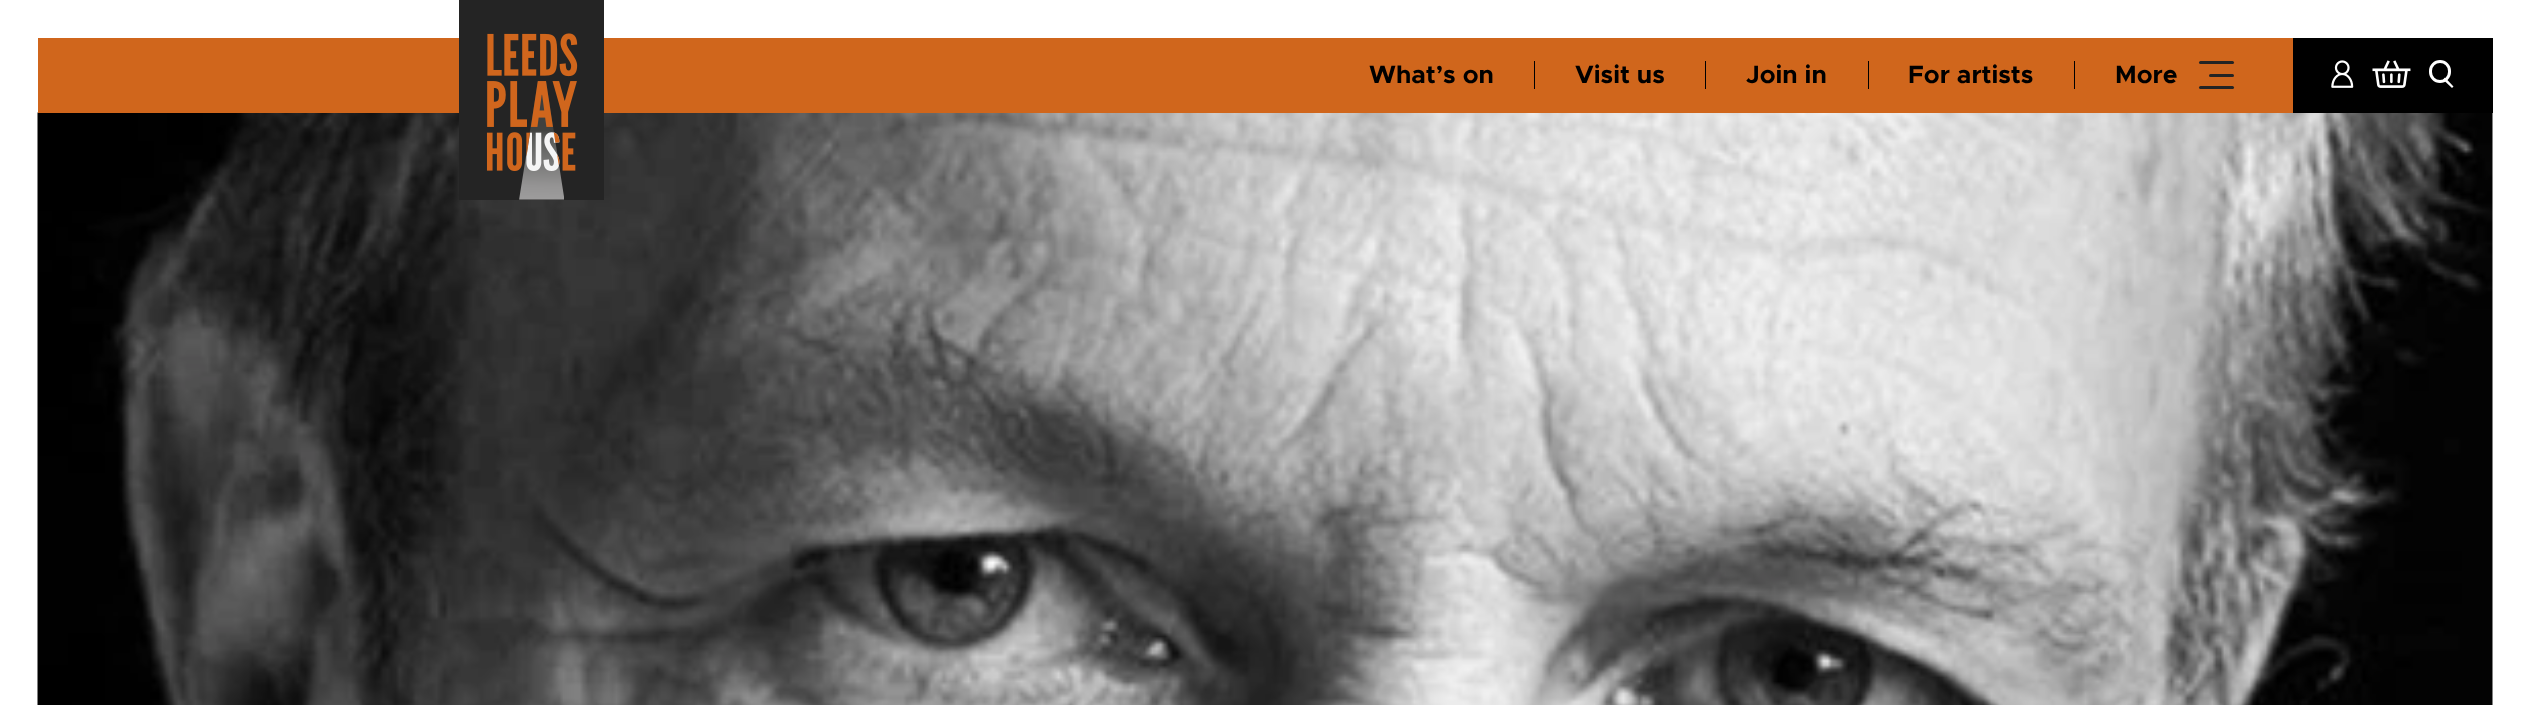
async function draw(canvas) {
	canvas.width = 2529;
	canvas.height = 705;
	const c = canvas.getContext('2d');
	c.miterLimit = 4;
	c.fontKerning = 'normal';
	async function loadImage(src) {
		const img = new Image();
		img.src = src;
		await img.decode();
		return img;
	}

	c.fillStyle = '#fff';
	c.fillRect(0, 0, 2529, 705);
	c.drawImage(await loadImage('img4.png'), 37, 112, 2456, 593);
	c.fillStyle = '#d0661c';
	c.fillRect(38, 38, 2255, 75);
	c.drawImage(await loadImage('img1.png'), 459, 0, 145, 200);
	c.font = 'bold 25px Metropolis';
	c.fillStyle = '#000';
	c.fillText('What’s on', 1369, 83);
	c.fillRect(1534, 61, 1, 28);
	c.fillText('Visit us', 1575, 83);
	c.fillRect(1705, 61, 1, 28);
	c.fillText('Join in', 1746, 83);
	c.fillRect(1868, 61, 1, 28);
	c.fillText('For artists', 1908, 83);
	c.fillRect(2074, 61, 1, 28);
	c.fillText('More', 2115, 83);
	c.fillStyle = '#242424';
	c.beginPath();
	c.roundRect(2199, 61, 35, 3, 1.5);
	c.fill();
	c.beginPath();
	c.roundRect(2209, 74, 25, 3, 1.5);
	c.fill();
	c.beginPath();
	c.roundRect(2199, 86, 35, 3, 1.5);
	c.fill();
	c.fillStyle = '#000';
	c.fillRect(2293, 38, 200, 75);
	c.drawImage(await loadImage('img2.png'), 2331, 60, 23, 28);
	c.drawImage(await loadImage('img3.png'), 2372, 60, 39, 28);
	c.beginPath();
	c.roundRect(2430.5, 61.5, 19, 20, 9.5);
	c.strokeStyle = '#fff';
	c.lineWidth = 3;
	c.stroke();
	c.fillStyle = '#fff';
	c.beginPath();
	c.moveTo(2445, 77.5);
	c.lineTo(2453.5, 86.5);
	c.lineTo(2452, 88);
	c.lineTo(2443, 79.5);
	c.closePath();
	c.fill();
}

draw(document.querySelector('canvas'));
